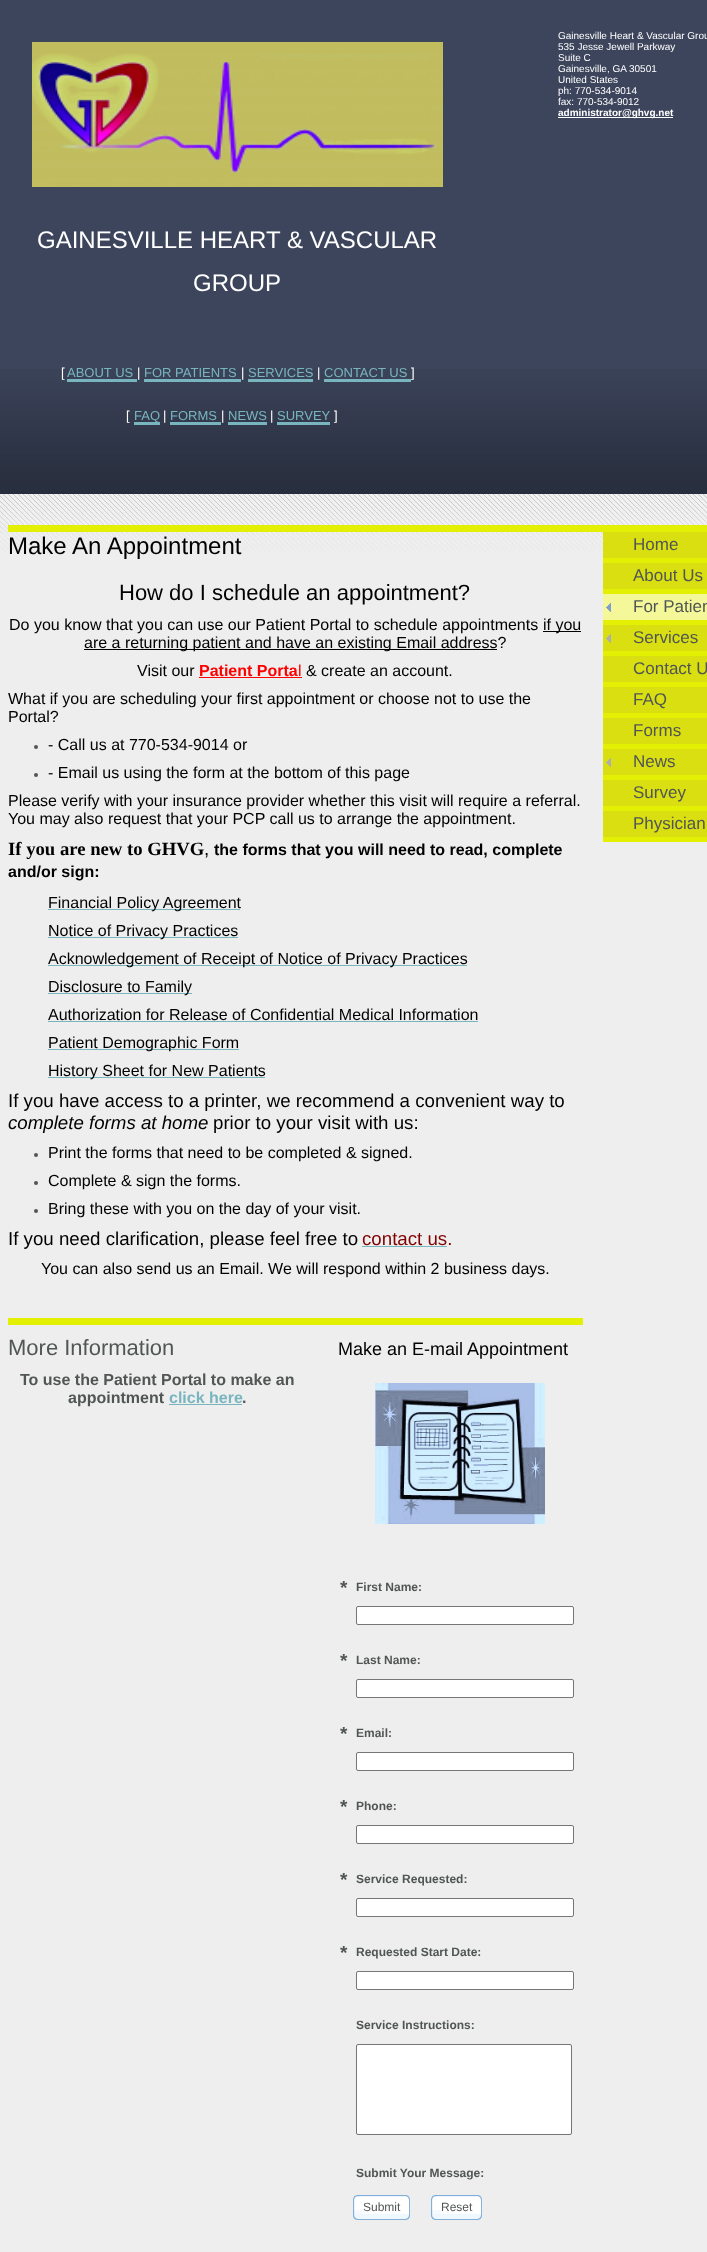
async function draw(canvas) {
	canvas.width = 707;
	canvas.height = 2252;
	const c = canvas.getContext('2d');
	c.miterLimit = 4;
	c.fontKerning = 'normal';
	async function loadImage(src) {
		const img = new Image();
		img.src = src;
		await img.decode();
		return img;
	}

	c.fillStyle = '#eee';
	c.fillRect(0, 0, 707, 2252);
	c.fillStyle = '#3d455c';
	c.fillRect(0, 0, 707, 369);
	c.drawImage(await loadImage('img1.png'), 0, 369, 707, 183);
	c.font = '10px Liberation Sans';
	c.fillStyle = '#fff';
	for (const [text, x, y] of [
		['Gainesville Heart & Vascular Grou', 558, 39],
		['535 Jesse Jewell Parkway', 558, 50],
		['Suite C', 558, 61],
		['Gainesville, GA', 558, 72],
		['30501', 629, 72],
		['United States', 558, 83],
		['ph: 770-534-9014', 558, 94],
		['fax: 770-534-9012', 558, 105],
	]) {
		c.fillText(text, x, y);
	}
	c.fillRect(558, 117, 115, 1);
	c.font = 'bold 10px Liberation Sans';
	c.fillText('administrator@ghvg.net', 558, 116);
	c.drawImage(await loadImage('img2.png'), 32, 42, 411, 145);
	c.font = '24px Liberation Sans';
	c.fillText('GAINESVILLE HEART & VASCULAR', 37, 248);
	c.fillText('GROUP', 193, 291);
	c.font = '13px Liberation Sans';
	c.fillText('[', 61, 377);
	c.fillStyle = '#79b5bf';
	c.fillText('ABOUT US', 67, 377);
	c.fillStyle = '#fff';
	c.fillText('|', 137, 377);
	c.fillStyle = '#79b5bf';
	c.fillRect(67, 379, 70, 3);
	c.fillText('FOR PATIENTS', 144, 377);
	c.fillStyle = '#fff';
	c.fillText('|', 241, 377);
	c.fillStyle = '#79b5bf';
	c.fillRect(144, 379, 97, 3);
	c.fillText('SERVICES', 248, 377);
	c.fillRect(248, 379, 65, 3);
	c.fillStyle = '#fff';
	c.fillText('|', 317, 377);
	c.fillStyle = '#79b5bf';
	c.fillText('CONTACT US', 324, 377);
	c.fillRect(324, 379, 87, 3);
	c.fillStyle = '#fff';
	c.fillText(']', 411, 377);
	c.fillText('[', 126, 420);
	c.fillStyle = '#79b5bf';
	c.fillRect(134, 422, 26, 3);
	c.fillText('FAQ', 134, 420);
	c.fillStyle = '#fff';
	c.fillText('|', 163, 420);
	c.fillStyle = '#79b5bf';
	c.fillText('FORMS', 170, 420);
	c.fillStyle = '#fff';
	c.fillText('|', 221, 420);
	c.fillStyle = '#79b5bf';
	c.fillRect(170, 422, 51, 3);
	c.fillText('NEWS', 228, 420);
	c.fillRect(228, 422, 39, 3);
	c.fillStyle = '#fff';
	c.fillText('|', 270, 420);
	c.fillStyle = '#79b5bf';
	c.fillText('SURVEY', 277, 420);
	c.fillRect(277, 422, 53, 3);
	c.fillStyle = '#fff';
	c.fillText(']', 334, 420);
	c.fillStyle = '#e3f003';
	c.fillRect(8, 525, 699, 7);
	c.font = '24px Liberation Sans';
	c.fillStyle = '#000';
	c.fillText('Make An Appointment', 8, 554);
	c.fillStyle = '#e3f003';
	c.fillRect(8, 1318, 575, 7);
	c.font = '22px Liberation Sans';
	c.fillStyle = '#000';
	c.fillText('How do I schedule an appointment?', 119, 600);
	c.font = '16px Liberation Sans';
	c.fillText('Do you know that you can use our Patient Portal to schedule appointments', 9, 630);
	c.fillRect(543, 631, 38, 1);
	c.fillText('if you', 543, 630);
	c.fillRect(84, 649, 413, 1);
	c.fillText('are a returning patient and have an existing Email address?', 84, 648);
	c.fillText('Visit our', 137, 676);
	c.font = 'bold 16px Liberation Sans';
	c.fillStyle = '#f00';
	c.fillText('Patient Porta', 199, 676);
	c.fillRect(199, 677, 103, 1);
	c.font = '16px Liberation Sans';
	c.fillText('l', 298, 676);
	c.fillStyle = '#000';
	for (const [text, x, y] of [
		['& create an account.', 306, 676],
		['What if you are scheduling your first appointment or choose not to use the', 8, 704],
		['Portal?', 8, 722],
	]) {
		c.fillText(text, x, y);
	}
	c.fillStyle = '#515655';
	c.beginPath();
	c.arc(36, 747, 2, 0, 2 * Math.PI);
	c.fill();
	c.fillStyle = '#000';
	c.fillText('- Call us at 770-534-9014 or', 48, 750);
	c.fillStyle = '#515655';
	c.beginPath();
	c.arc(36, 775, 2, 0, 2 * Math.PI);
	c.fill();
	c.fillStyle = '#000';
	for (const [text, x, y] of [
		['- Email us using the form at the bottom of this page', 48, 778],
		['Please verify with your insurance provider whether this visit will require a referral.', 8, 806],
		['You may also request that your PCP call us to arrange the appointment.', 8, 824],
	]) {
		c.fillText(text, x, y);
	}
	c.font = 'bold 18.7px Liberation Serif';
	c.fillText('If you are new to GHVG', 8, 855);
	c.font = '18.7px Liberation Sans';
	c.fillText(',', 204, 855);
	c.font = 'bold 16px Liberation Sans';
	c.fillText('the forms that you will need to read, complete', 214, 855);
	c.fillText('and/or sign:', 8, 877);
	c.fillStyle = '#79b5bf';
	c.fillRect(48, 909, 192, 1);
	c.font = '16px Liberation Sans';
	c.fillStyle = '#000';
	c.fillText('Financial Policy Agreement', 48, 908);
	c.fillStyle = '#79b5bf';
	c.fillRect(48, 937, 190, 1);
	c.fillStyle = '#000';
	c.fillText('Notice of Privacy Practices', 48, 936);
	c.fillStyle = '#79b5bf';
	c.fillRect(48, 965, 419, 1);
	c.fillStyle = '#000';
	c.fillText('Acknowledgement of Receipt of Notice of Privacy Practices', 48, 964);
	c.fillStyle = '#79b5bf';
	c.fillRect(48, 993, 144, 1);
	c.fillStyle = '#000';
	c.fillText('Disclosure to Family', 48, 992);
	c.fillText('Authorization for Release of Confidential Medical Information', 48, 1020);
	c.fillStyle = '#79b5bf';
	c.fillRect(48, 1021, 430, 1);
	c.fillRect(48, 1049, 191, 1);
	c.fillStyle = '#000';
	c.fillText('Patient Demographic Form', 48, 1048);
	c.fillStyle = '#79b5bf';
	c.fillRect(48, 1077, 217, 1);
	c.fillStyle = '#000';
	c.fillText('History Sheet for New Patients', 48, 1076);
	c.font = '18.7px Liberation Sans';
	c.fillText('If you have access to a printer, we recommend a convenient way to', 8, 1107);
	c.font = 'italic 18.7px Liberation Sans';
	c.fillText('complete forms at home', 8, 1129);
	c.font = '18.7px Liberation Sans';
	c.fillText('prior to your visit with us:', 213, 1129);
	c.fillStyle = '#515655';
	c.beginPath();
	c.arc(36, 1155, 2, 0, 2 * Math.PI);
	c.fill();
	c.font = '16px Liberation Sans';
	c.fillStyle = '#000';
	c.fillText('Print the forms that need to be completed & signed.', 48, 1158);
	c.fillStyle = '#515655';
	c.beginPath();
	c.arc(36, 1183, 2, 0, 2 * Math.PI);
	c.fill();
	c.fillStyle = '#000';
	c.fillText('Complete & sign the forms.', 48, 1186);
	c.fillStyle = '#515655';
	c.beginPath();
	c.arc(36, 1211, 2, 0, 2 * Math.PI);
	c.fill();
	c.fillStyle = '#000';
	c.fillText('Bring these with you on the day of your visit.', 48, 1214);
	c.font = '18.7px Liberation Sans';
	c.fillText('If you need clarification, please feel free to', 8, 1245);
	c.fillStyle = '#800000';
	c.fillText('contact us.', 362, 1245);
	c.fillStyle = '#79b5bf';
	c.fillRect(362, 1246, 85, 1);
	c.font = '16px Liberation Sans';
	c.fillStyle = '#000';
	c.fillText('You can also send us an Email. We will respond within 2 business days.', 41, 1274);
	c.font = '22px Liberation Sans';
	c.fillStyle = '#515655';
	c.fillText('More Information', 8, 1355);
	c.font = 'bold 16px Liberation Sans';
	c.fillText('To use the Patient Portal to make an', 20, 1385);
	c.fillText('appointment', 68, 1403);
	c.fillStyle = '#79b5bf';
	c.fillText('click here', 169, 1403);
	c.fillStyle = '#515655';
	c.fillText('.', 242, 1403);
	c.fillStyle = '#79b5bf';
	c.fillRect(169, 1404, 73, 1);
	c.font = '18px Liberation Sans';
	c.fillStyle = '#000';
	c.fillText('Make an E-mail Appointment', 338, 1355);
	c.drawImage(await loadImage('img3.png'), 375, 1383, 170, 141);
	c.font = 'bold 19px Liberation Sans';
	c.fillStyle = '#515655';
	c.fillText('*', 340, 1594);
	c.font = 'bold 12px Liberation Sans';
	c.fillText('First Name:', 356, 1591);
	c.fillStyle = '#fff';
	c.beginPath();
	c.roundRect(356.5, 1606.5, 217, 18, 1.5);
	c.fill();
	c.strokeStyle = '#767676';
	c.stroke();
	c.font = 'bold 19px Liberation Sans';
	c.fillStyle = '#515655';
	c.fillText('*', 340, 1667);
	c.font = 'bold 12px Liberation Sans';
	c.fillText('Last Name:', 356, 1664);
	c.fillStyle = '#fff';
	c.beginPath();
	c.roundRect(356.5, 1679.5, 217, 18, 1.5);
	c.fill();
	c.stroke();
	c.font = 'bold 19px Liberation Sans';
	c.fillStyle = '#515655';
	c.fillText('*', 340, 1740);
	c.font = 'bold 12px Liberation Sans';
	c.fillText('Email:', 356, 1737);
	c.fillStyle = '#fff';
	c.beginPath();
	c.roundRect(356.5, 1752.5, 217, 18, 1.5);
	c.fill();
	c.stroke();
	c.font = 'bold 19px Liberation Sans';
	c.fillStyle = '#515655';
	c.fillText('*', 340, 1813);
	c.font = 'bold 12px Liberation Sans';
	c.fillText('Phone:', 356, 1810);
	c.fillStyle = '#fff';
	c.beginPath();
	c.roundRect(356.5, 1825.5, 217, 18, 1.5);
	c.fill();
	c.stroke();
	c.font = 'bold 19px Liberation Sans';
	c.fillStyle = '#515655';
	c.fillText('*', 340, 1886);
	c.font = 'bold 12px Liberation Sans';
	c.fillText('Service Requested:', 356, 1883);
	c.fillStyle = '#fff';
	c.beginPath();
	c.roundRect(356.5, 1898.5, 217, 18, 1.5);
	c.fill();
	c.stroke();
	c.font = 'bold 19px Liberation Sans';
	c.fillStyle = '#515655';
	c.fillText('*', 340, 1959);
	c.font = 'bold 12px Liberation Sans';
	c.fillText('Requested Start Date:', 356, 1956);
	c.fillStyle = '#fff';
	c.beginPath();
	c.roundRect(356.5, 1971.5, 217, 18, 1.5);
	c.fill();
	c.stroke();
	c.fillStyle = '#515655';
	c.fillText('Service Instructions:', 356, 2029);
	c.fillStyle = '#fff';
	c.beginPath();
	c.roundRect(356.5, 2044.5, 215, 90, 1.5);
	c.fill();
	c.stroke();
	c.fillStyle = '#515655';
	c.fillText('Submit Your Message:', 356, 2177);
	c.drawImage(await loadImage('img4.png'), 363, 2214, 47, 6);
	c.drawImage(await loadImage('img5.png'), 353, 2210, 10, 10);
	c.drawImage(await loadImage('img6.png'), 353, 2195, 10, 15);
	c.drawImage(await loadImage('img7.png'), 363, 2195, 47, 19);
	c.font = '12px Liberation Sans';
	c.fillText('Submit', 363, 2211);
	c.drawImage(await loadImage('img8.png'), 441, 2214, 41, 6);
	c.drawImage(await loadImage('img5.png'), 431, 2210, 10, 10);
	c.drawImage(await loadImage('img6.png'), 431, 2195, 10, 15);
	c.drawImage(await loadImage('img9.png'), 441, 2195, 41, 19);
	c.fillText('Reset', 441, 2211);
	c.fillStyle = '#e3f003';
	c.fillRect(603, 558, 104, 5);
	c.fillStyle = '#dadf11';
	c.fillRect(603, 532, 104, 26);
	c.font = '17px Liberation Sans';
	c.fillStyle = '#515655';
	c.fillText('Home', 633, 550);
	c.fillStyle = '#e3f003';
	c.fillRect(603, 589, 104, 5);
	c.fillStyle = '#dadf11';
	c.fillRect(603, 563, 104, 26);
	c.fillStyle = '#515655';
	c.fillText('About Us', 633, 581);
	c.fillStyle = '#e3f003';
	c.fillRect(603, 620, 104, 5);
	c.fillStyle = '#f4f899';
	c.fillRect(603, 594, 104, 26);
	c.drawImage(await loadImage('img10.png'), 606, 603, 5, 9);
	c.fillStyle = '#515655';
	c.fillText('For Patien', 633, 612);
	c.fillStyle = '#e3f003';
	c.fillRect(603, 651, 104, 5);
	c.fillStyle = '#dadf11';
	c.fillRect(603, 625, 104, 26);
	c.drawImage(await loadImage('img11.png'), 606, 634, 5, 9);
	c.fillStyle = '#515655';
	c.fillText('Services', 633, 643);
	c.fillStyle = '#e3f003';
	c.fillRect(603, 682, 104, 5);
	c.fillStyle = '#dadf11';
	c.fillRect(603, 656, 104, 26);
	c.fillStyle = '#515655';
	c.fillText('Contact U', 633, 674);
	c.fillStyle = '#e3f003';
	c.fillRect(603, 713, 104, 5);
	c.fillStyle = '#dadf11';
	c.fillRect(603, 687, 104, 26);
	c.fillStyle = '#515655';
	c.fillText('FAQ', 633, 705);
	c.fillStyle = '#e3f003';
	c.fillRect(603, 744, 104, 5);
	c.fillStyle = '#dadf11';
	c.fillRect(603, 718, 104, 26);
	c.fillStyle = '#515655';
	c.fillText('Forms', 633, 736);
	c.fillStyle = '#e3f003';
	c.fillRect(603, 775, 104, 5);
	c.fillStyle = '#dadf11';
	c.fillRect(603, 749, 104, 26);
	c.drawImage(await loadImage('img11.png'), 606, 758, 5, 9);
	c.fillStyle = '#515655';
	c.fillText('News', 633, 767);
	c.fillStyle = '#e3f003';
	c.fillRect(603, 806, 104, 5);
	c.fillStyle = '#dadf11';
	c.fillRect(603, 780, 104, 26);
	c.fillStyle = '#515655';
	c.fillText('Survey', 633, 798);
	c.fillStyle = '#e3f003';
	c.fillRect(603, 837, 104, 5);
	c.fillStyle = '#dadf11';
	c.fillRect(603, 811, 104, 26);
	c.fillStyle = '#515655';
	c.fillText('Physician', 633, 829);
}

draw(document.querySelector('canvas'));
